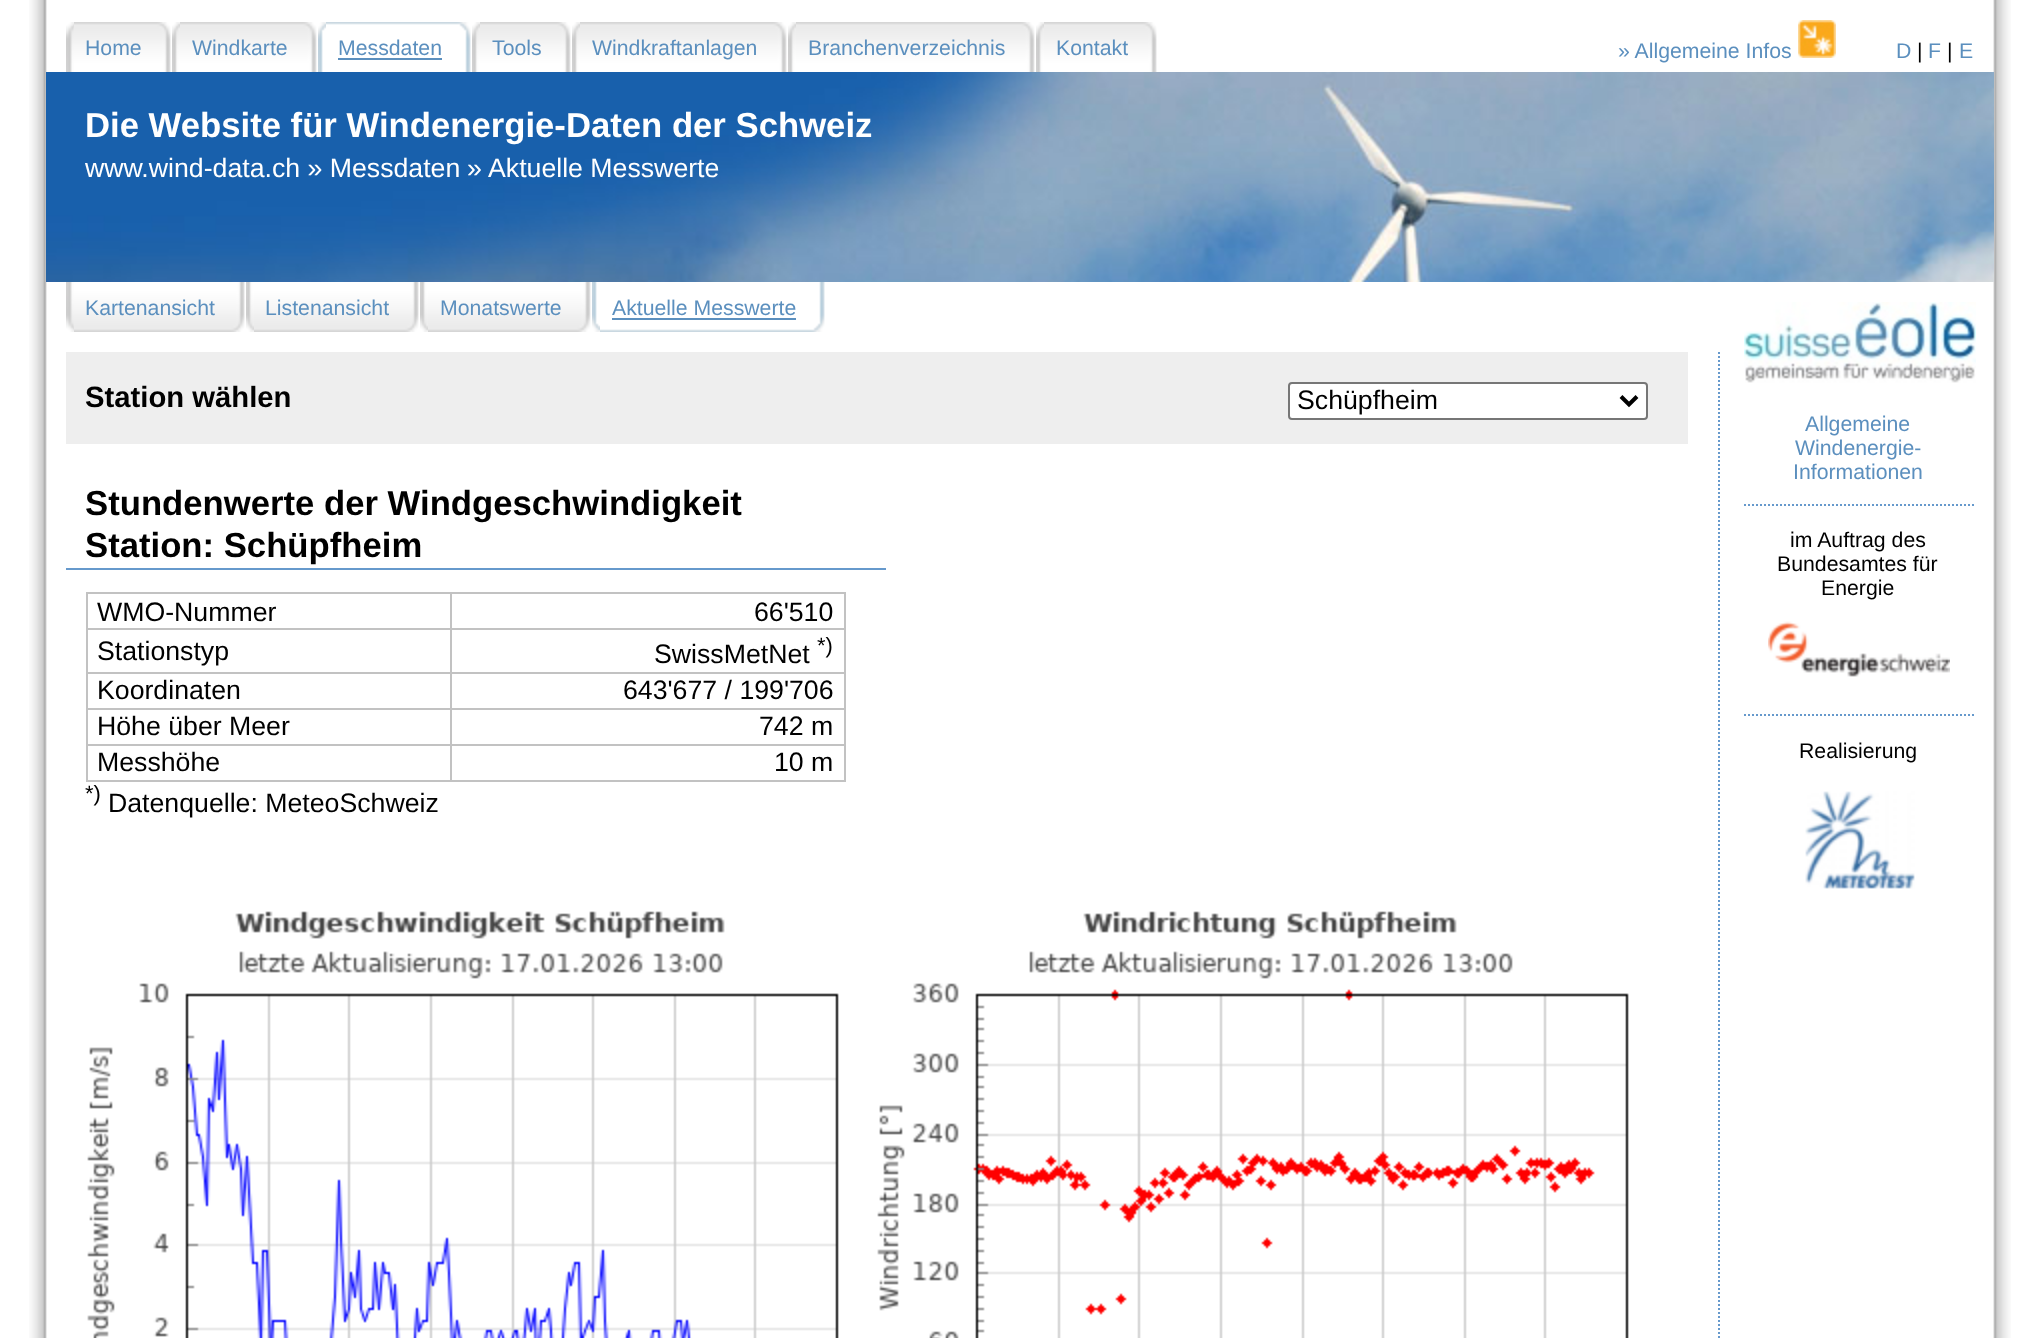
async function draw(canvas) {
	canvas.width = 2037;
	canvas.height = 1338;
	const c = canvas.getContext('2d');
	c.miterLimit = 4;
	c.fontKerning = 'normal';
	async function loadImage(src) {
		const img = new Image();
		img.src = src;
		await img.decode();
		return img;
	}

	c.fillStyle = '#fff';
	c.fillRect(0, 0, 2037, 1338);
	c.drawImage(await loadImage('img1.png'), 29, 0, 1982, 1338);
	c.drawImage(await loadImage('img2.png'), 66, 22, 8, 50);
	c.drawImage(await loadImage('img3.png'), 74, 22, 97, 50);
	c.font = '21.25px Liberation Sans';
	c.fillStyle = '#5b8fbe';
	c.fillText('Home', 85, 55);
	c.drawImage(await loadImage('img4.png'), 172, 22, 8, 50);
	c.drawImage(await loadImage('img5.png'), 180, 22, 137, 50);
	c.fillText('Windkarte', 192, 55);
	c.drawImage(await loadImage('img6.png'), 318, 22, 8, 50);
	c.drawImage(await loadImage('img7.png'), 326, 22, 145, 50);
	c.fillText('Messdaten', 338, 55);
	c.fillRect(338, 58, 104, 2);
	c.drawImage(await loadImage('img4.png'), 472, 22, 8, 50);
	c.drawImage(await loadImage('img8.png'), 480, 22, 91, 50);
	c.fillText('Tools', 492, 55);
	c.drawImage(await loadImage('img4.png'), 572, 22, 8, 50);
	c.drawImage(await loadImage('img9.png'), 580, 22, 207, 50);
	c.fillText('Windkraftanlagen', 592, 55);
	c.drawImage(await loadImage('img4.png'), 788, 22, 8, 50);
	c.drawImage(await loadImage('img10.png'), 796, 22, 239, 50);
	c.fillText('Branchenverzeichnis', 808, 55);
	c.drawImage(await loadImage('img4.png'), 1036, 22, 8, 50);
	c.drawImage(await loadImage('img11.png'), 1044, 22, 113, 50);
	c.fillText('Kontakt', 1056, 55);
	c.fillText('» Allgemeine Infos', 1618, 58);
	c.drawImage(await loadImage('img12.png'), 1798, 20, 38, 38);
	c.fillText('D', 1896, 58);
	c.fillStyle = '#000';
	c.fillText('|', 1917, 58);
	c.fillStyle = '#5b8fbe';
	c.fillText('F', 1928, 58);
	c.fillStyle = '#000';
	c.fillText('|', 1947, 58);
	c.fillStyle = '#5b8fbe';
	c.fillText('E', 1959, 58);
	c.drawImage(await loadImage('img13.png'), 46, 72, 1948, 210);
	c.font = 'bold 34.7px Liberation Sans';
	c.fillStyle = '#fff';
	c.fillText('Die Website für Windenergie-Daten der Schweiz', 85, 137);
	c.font = '26.7px Liberation Sans';
	for (const [text, x, y] of [
		['www.wind-data.ch » Messdaten', 85, 177],
		['»', 467, 177],
		['Aktuelle Messwerte', 488, 177],
	]) {
		c.fillText(text, x, y);
	}
	c.drawImage(await loadImage('img14.png'), 66, 282, 8, 50);
	c.drawImage(await loadImage('img15.png'), 74, 282, 171, 50);
	c.font = '21.25px Liberation Sans';
	c.fillStyle = '#5b8fbe';
	c.fillText('Kartenansicht', 85, 315);
	c.drawImage(await loadImage('img16.png'), 246, 282, 8, 50);
	c.drawImage(await loadImage('img17.png'), 254, 282, 165, 50);
	c.fillText('Listenansicht', 265, 315);
	c.drawImage(await loadImage('img16.png'), 420, 282, 8, 50);
	c.drawImage(await loadImage('img18.png'), 428, 282, 163, 50);
	c.fillText('Monatswerte', 440, 315);
	c.drawImage(await loadImage('img19.png'), 592, 282, 8, 50);
	c.drawImage(await loadImage('img20.png'), 600, 282, 225, 50);
	c.fillText('Aktuelle Messwerte', 612, 315);
	c.fillRect(612, 318, 184, 2);
	c.beginPath();
	c.moveTo(1719, 352);
	c.lineTo(1719, 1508);
	c.strokeStyle = '#69c';
	c.lineWidth = 2;
	c.setLineDash([2, 2]);
	c.stroke();
	c.fillStyle = '#eee';
	c.fillRect(66, 352, 1622, 92);
	c.font = 'bold 29.25px Liberation Sans';
	c.fillStyle = '#000';
	c.fillText('Station wählen', 85, 407);
	c.fillStyle = '#fff';
	c.beginPath();
	c.roundRect(1289, 383, 358, 36, 3);
	c.fill();
	c.strokeStyle = '#767676';
	c.setLineDash([]);
	c.stroke();
	c.beginPath();
	c.moveTo(1621, 396.5);
	c.lineTo(1629, 404.5);
	c.lineTo(1637, 396.5);
	c.strokeStyle = '#000';
	c.lineWidth = 4;
	c.stroke();
	c.font = '26.7px Liberation Sans';
	c.fillStyle = '#000';
	c.fillText('Schüpfheim', 1297, 409);
	c.fillStyle = '#69c';
	c.fillRect(66, 568, 820, 2);
	c.font = 'bold 34.7px Liberation Sans';
	c.fillStyle = '#000';
	c.fillText('Stundenwerte der Windgeschwindigkeit', 85, 515);
	c.fillText('Station: Schüpfheim', 85, 557);
	for (const [x, y, w, h, color] of [
		[450, 592, 396, 2, '#c2c2c2'],
		[450, 628, 396, 2, '#c2c2c2'],
		[450, 672, 396, 2, '#c2c2c2'],
		[450, 708, 396, 2, '#c2c2c2'],
		[450, 744, 396, 2, '#c2c2c2'],
		[844, 744, 2, 38, '#c2c2c2'],
		[450, 780, 396, 2, '#c2c2c2'],
		[450, 744, 2, 38, '#c2c2c2'],
		[86, 744, 366, 2, '#c2c2c2'],
		[450, 708, 2, 38, '#c2c2c2'],
		[86, 708, 366, 2, '#c2c2c2'],
		[450, 672, 2, 38, '#c2c2c2'],
		[86, 672, 366, 2, '#c2c2c2'],
		[450, 628, 2, 46, '#c2c2c2'],
		[86, 628, 366, 2, '#c2c2c2'],
		[450, 592, 2, 38, '#c2c2c2'],
		[86, 592, 366, 2, '#c2c2c2'],
		[86, 780, 366, 2, '#c2c2c2'],
		[86, 744, 2, 38, '#c2c2c2'],
		[86, 708, 2, 38, '#c2c2c2'],
		[86, 672, 2, 38, '#c2c2c2'],
		[86, 628, 2, 46, '#c2c2c2'],
		[86, 592, 2, 38, '#c2c2c2'],
	]) {
		c.fillStyle = color;
		c.fillRect(x, y, w, h);
	}
	c.font = '26.7px Liberation Sans';
	c.fillStyle = '#000';
	c.fillText('WMO-Nummer', 97, 621);
	for (const [x, y, w, h, color] of [
		[844, 708, 2, 38, '#c2c2c2'],
		[844, 672, 2, 38, '#c2c2c2'],
		[844, 628, 2, 46, '#c2c2c2'],
		[844, 592, 2, 38, '#c2c2c2'],
	]) {
		c.fillStyle = color;
		c.fillRect(x, y, w, h);
	}
	c.fillStyle = '#000';
	for (const [text, x, y] of [
		['66\'510', 754, 621],
		['Stationstyp', 97, 660],
		['SwissMetNet', 654, 663],
	]) {
		c.fillText(text, x, y);
	}
	c.font = '22px Liberation Sans';
	c.fillText('*)', 817, 653);
	c.font = '26.7px Liberation Sans';
	for (const [text, x, y] of [
		['Koordinaten', 97, 699],
		['643\'677 / 199\'706', 623, 699],
		['Höhe über Meer', 97, 735],
		['742 m', 759, 735],
		['Messhöhe', 97, 771],
		['10 m', 774, 771],
	]) {
		c.fillText(text, x, y);
	}
	c.font = '22px Liberation Sans';
	c.fillText('*)', 85, 801);
	c.font = '26.7px Liberation Sans';
	c.fillText('Datenquelle: MeteoSchweiz', 108, 812);
	c.drawImage(await loadImage('img21.png'), 87, 911, 752, 427);
	c.drawImage(await loadImage('img22.png'), 877, 911, 752, 427);
	c.drawImage(await loadImage('img23.png'), 1744, 302, 232, 81);
	c.font = '21.25px Liberation Sans';
	c.fillStyle = '#5b8fbe';
	for (const [text, x, y] of [
		['Allgemeine', 1805, 431],
		['Windenergie-', 1795, 455],
		['Informationen', 1793, 479],
	]) {
		c.fillText(text, x, y);
	}
	c.beginPath();
	c.moveTo(1744, 505);
	c.lineTo(1974, 505);
	c.strokeStyle = '#69c';
	c.lineWidth = 2;
	c.setLineDash([2, 2]);
	c.stroke();
	c.fillStyle = '#000';
	for (const [text, x, y] of [
		['im Auftrag des', 1790, 547],
		['Bundesamtes für', 1777, 571],
		['Energie', 1821, 595],
	]) {
		c.fillText(text, x, y);
	}
	c.drawImage(await loadImage('img24.png'), 1768, 621, 182, 56);
	c.beginPath();
	c.moveTo(1744, 715);
	c.lineTo(1974, 715);
	c.stroke();
	c.fillText('Realisierung', 1799, 758);
	c.drawImage(await loadImage('img25.png'), 1805, 791, 110, 98);
}

draw(document.querySelector('canvas'));
